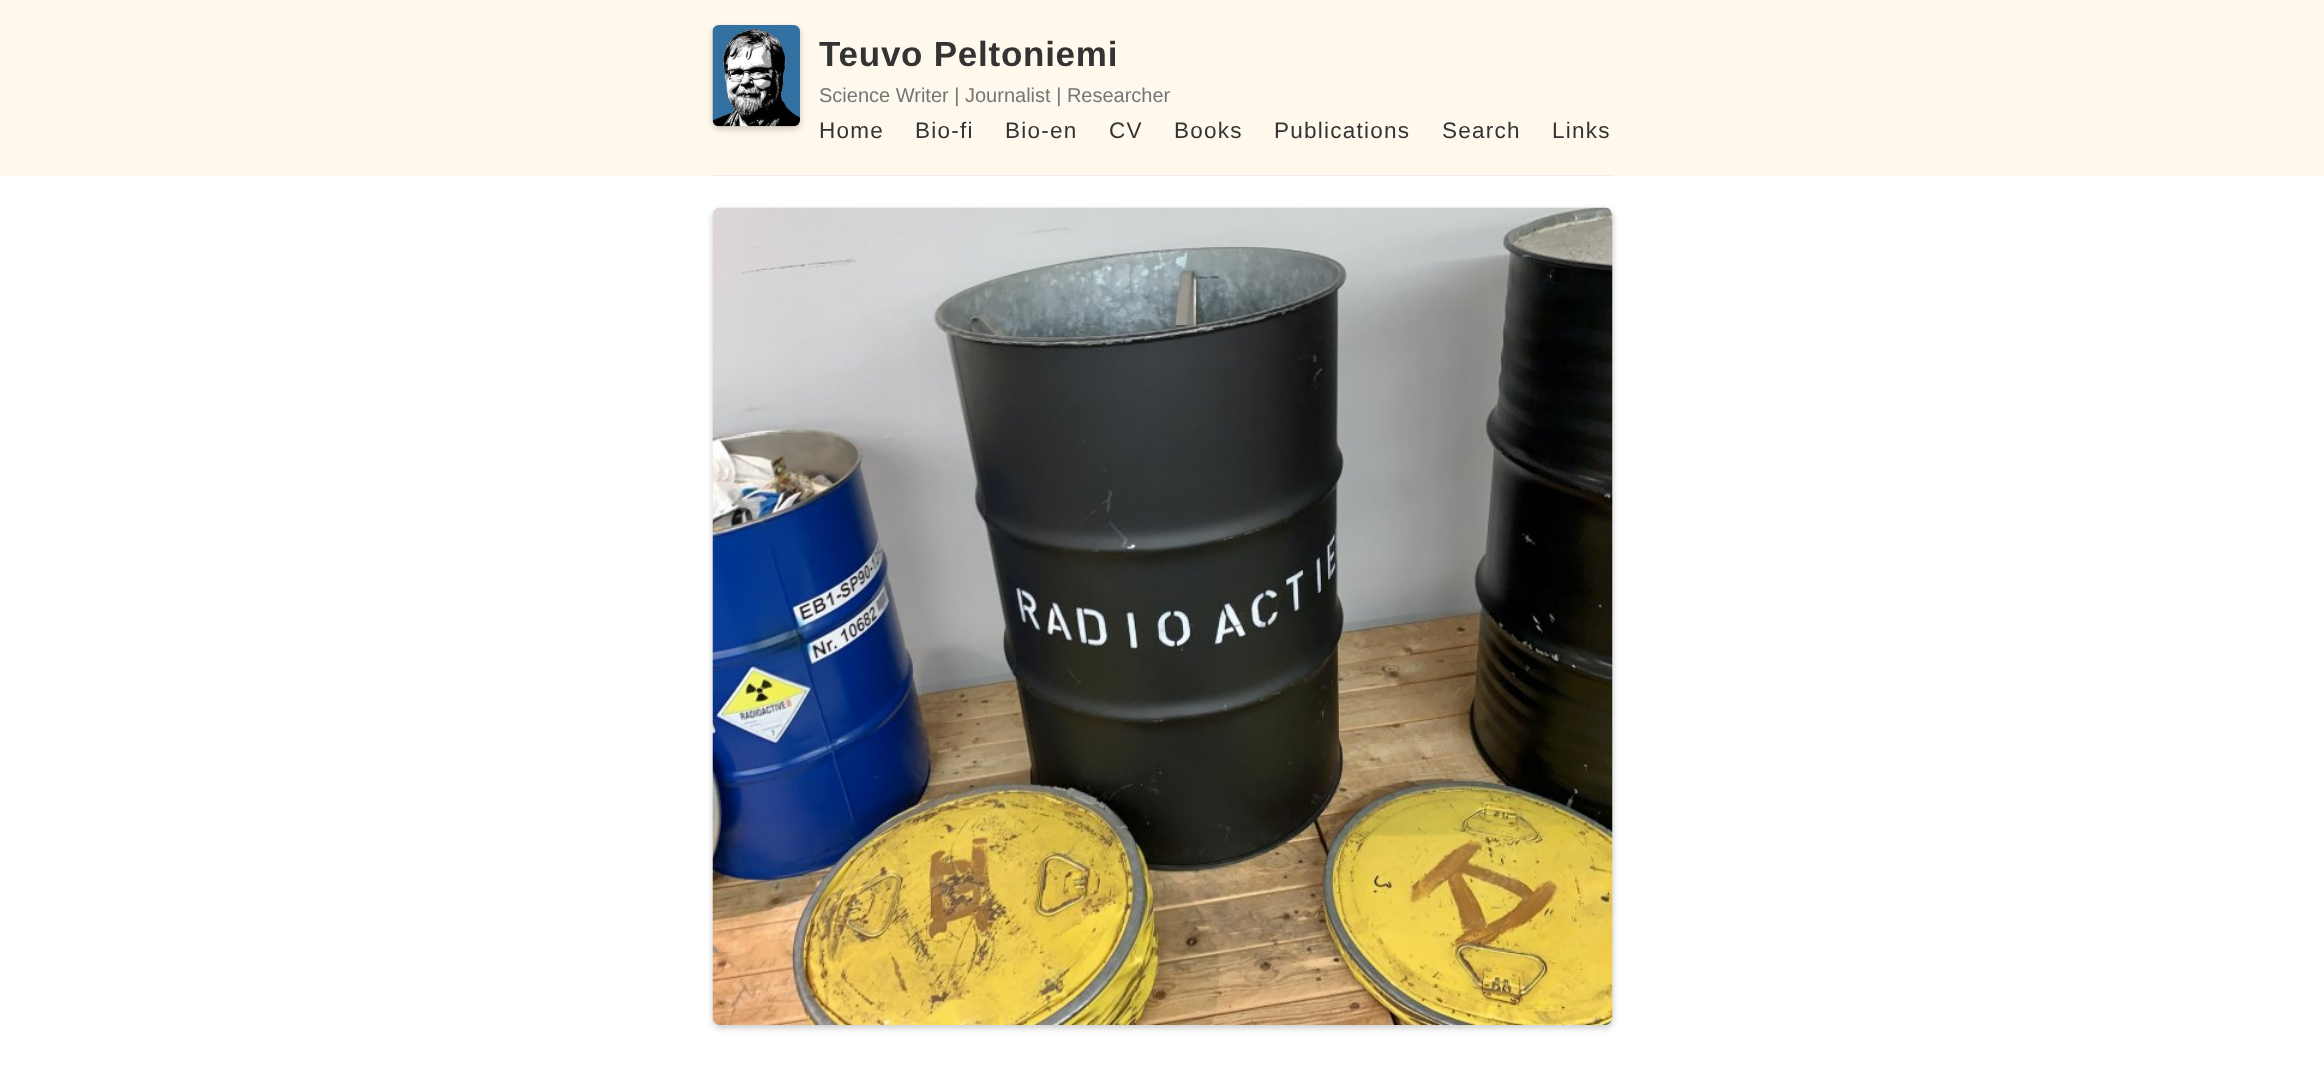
async function draw(canvas) {
	canvas.width = 2324;
	canvas.height = 1071;
	const c = canvas.getContext('2d');
	c.miterLimit = 4;
	c.fontKerning = 'normal';
	async function loadImage(src) {
		const img = new Image();
		img.src = src;
		await img.decode();
		return img;
	}

	c.fillStyle = '#fff';
	c.fillRect(0, 0, 2324, 1071);
	c.fillStyle = '#fff8ed';
	c.fillRect(0, 0, 2324, 176);
	c.fillStyle = '#eee';
	c.fillRect(713, 175, 900, 1);
	c.fillStyle = '#00000033';
	c.filter = 'blur(3px)';
	c.beginPath();
	c.roundRect(713, 28, 87, 101, 6);
	c.fill();
	c.filter = 'none';
	c.drawImage(await loadImage('img1.png'), 712, 25, 88, 102);
	c.letterSpacing = '0.75px';
	c.font = 'bold 35px Liberation Sans';
	c.fillStyle = '#333';
	c.fillText('Teuvo Peltoniemi', 819, 66);
	c.letterSpacing = '0px';
	c.font = '20px Liberation Sans';
	c.fillStyle = '#757575';
	c.fillText('Science Writer | Journalist | Researcher', 819, 102);
	c.letterSpacing = '1.25px';
	c.font = '22.5px Liberation Sans';
	c.fillStyle = '#333';
	for (const [text, x, y] of [
		['Home', 819, 138],
		['Bio-fi', 915, 138],
		['Bio-en', 1005, 138],
		['CV', 1109, 138],
		['Books', 1174, 138],
		['Publications', 1274, 138],
		['Search', 1442, 138],
		['Links', 1552, 138],
	]) {
		c.fillText(text, x, y);
	}
	c.fillStyle = '#00000033';
	c.filter = 'blur(3px)';
	c.beginPath();
	c.roundRect(713, 210, 900, 818, 8);
	c.fill();
	c.filter = 'none';
	c.drawImage(await loadImage('img2.png'), 712, 207, 901, 818);
}

draw(document.querySelector('canvas'));
